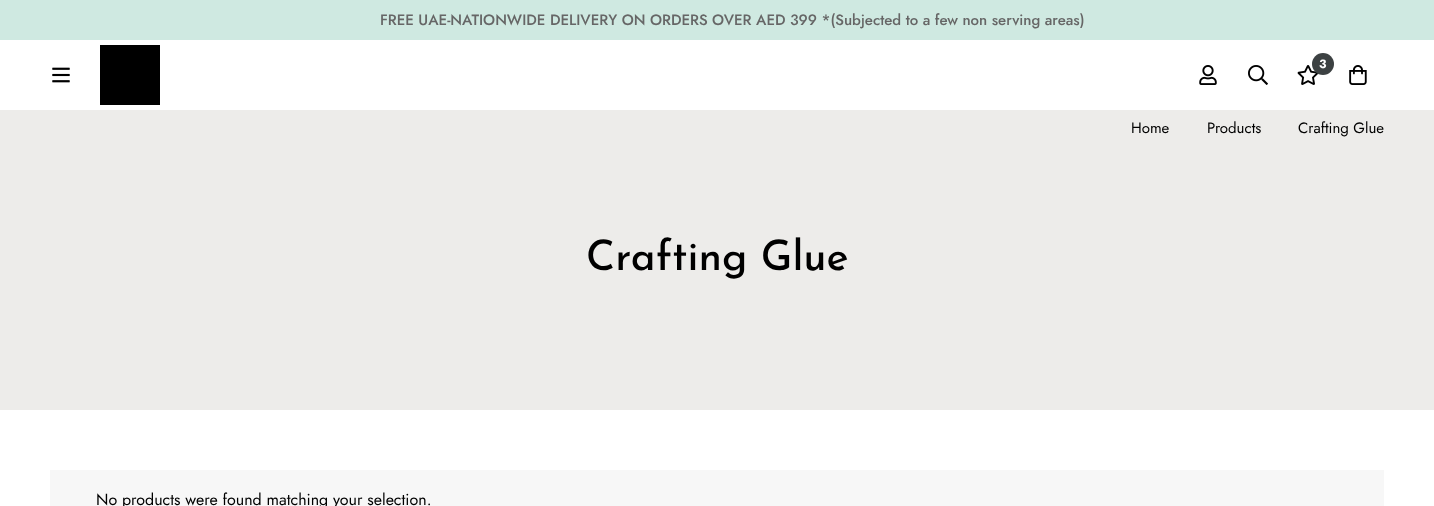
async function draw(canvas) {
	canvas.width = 1434;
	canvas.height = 506;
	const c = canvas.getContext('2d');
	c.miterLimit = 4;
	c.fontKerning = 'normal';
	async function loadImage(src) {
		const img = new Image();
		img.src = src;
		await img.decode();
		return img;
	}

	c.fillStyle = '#fff';
	c.fillRect(0, 0, 1434, 506);
	c.fillStyle = '#cfe9e1';
	c.fillRect(0, 0, 1434, 40);
	c.font = '500 15px Jost';
	c.fillStyle = '#666';
	c.fillText('FREE UAE-NATIONWIDE DELIVERY ON ORDERS OVER AED 399 *(Subjected to a few non serving areas)', 380, 25);
	c.drawImage(await loadImage('img1.png'), 52, 67, 18, 16);
	c.fillStyle = '#000';
	c.fillRect(100, 45, 60, 60);
	c.drawImage(await loadImage('img2.png'), 1297, 65, 22, 20);
	c.fillStyle = '#3c4142';
	c.beginPath();
	c.arc(1323, 64, 11, 0, 2 * Math.PI);
	c.fill();
	c.font = 'bold 12px Jost';
	c.fillStyle = '#fff';
	c.fillText('3', 1319, 68);
	c.drawImage(await loadImage('img3.png'), 1199, 65, 18, 20);
	c.drawImage(await loadImage('img4.png'), 1248, 65, 20, 20);
	c.drawImage(await loadImage('img5.png'), 1349, 65, 18, 20);
	c.fillStyle = '#edecea';
	c.fillRect(0, 110, 1434, 300);
	c.font = '15px Jost';
	c.fillStyle = '#000';
	for (const [text, x, y] of [
		['Home', 1131, 133],
		['Products', 1207, 133],
		['Crafting Glue', 1298, 133],
	]) {
		c.fillText(text, x, y);
	}
	c.font = '100 42px Josefin Sans';
	c.fillText('Crafting Glue', 586, 270);
	c.fillStyle = '#f7f7f7';
	c.fillRect(50, 470, 1334, 36);
	c.font = '16px Jost';
	c.fillStyle = '#000';
	c.fillText('No products were found matching your selection.', 96, 505);
}

draw(document.querySelector('canvas'));
